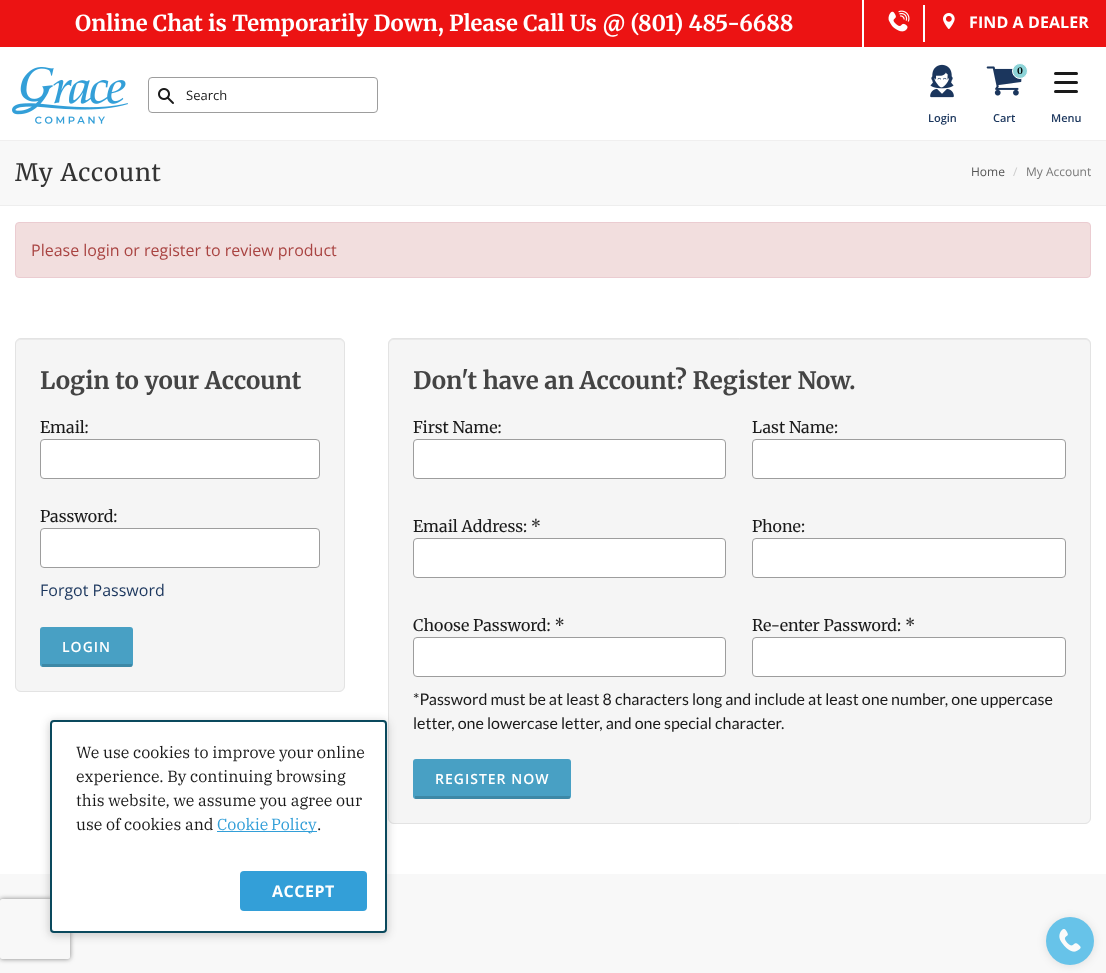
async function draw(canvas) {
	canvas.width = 1106;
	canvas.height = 973;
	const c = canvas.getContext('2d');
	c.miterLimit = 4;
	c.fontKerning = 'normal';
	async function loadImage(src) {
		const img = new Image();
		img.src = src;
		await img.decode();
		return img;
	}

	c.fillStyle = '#f8f8f8';
	c.fillRect(0, 0, 1106, 973);
	c.fillStyle = '#ec1313';
	c.fillRect(0, 0, 1106, 47);
	c.fillStyle = '#fff';
	c.fillRect(862, 0, 2, 47);
	c.font = 'bold 22px Merriweather';
	c.fillText('Online Chat is Temporarily Down, Please Call Us @ (801) 485-6688', 75, 31);
	c.fillRect(923, 5, 2, 37);
	c.drawImage(await loadImage('img1.png'), 888, 10, 22, 22);
	c.drawImage(await loadImage('img2.png'), 943, 13, 12, 16);
	c.letterSpacing = '0.1px';
	c.font = 'bold 16px Open Sans';
	c.fillText('FIND A DEALER', 969, 28);
	c.fillRect(0, 47, 1106, 93);
	c.fillStyle = '#f0efef';
	c.fillRect(0, 140, 1106, 1);
	c.drawImage(await loadImage('img3.png'), 12, 67, 116, 57);
	c.beginPath();
	c.roundRect(148.5, 77.5, 229, 35, 3.5);
	c.strokeStyle = '#9d9d9d';
	c.stroke();
	c.drawImage(await loadImage('img4.png'), 158, 88, 16, 16);
	c.letterSpacing = '0px';
	c.font = '13px Open Sans';
	c.fillStyle = '#1a1a1a';
	c.fillText('Search', 186, 100);
	c.drawImage(await loadImage('img5.png'), 930, 64, 24, 34);
	c.font = '600 11px Open Sans';
	c.fillStyle = '#1b365d';
	c.fillText('Login', 928, 122);
	c.drawImage(await loadImage('img6.png'), 986, 66, 36, 30);
	c.fillStyle = '#8cd3d7';
	c.beginPath();
	c.arc(1020, 71, 7.5, 0, 2 * Math.PI);
	c.fill();
	c.strokeStyle = '#fff';
	c.stroke();
	c.font = 'bold 9px Merriweather';
	c.fillStyle = '#000';
	c.fillText('0', 1017, 74);
	c.font = '600 11px Open Sans';
	c.fillStyle = '#1b365d';
	c.fillText('Cart', 993, 122);
	c.fillStyle = '#1a1a1a';
	c.beginPath();
	c.roundRect(1054, 72, 24, 3, 1.5);
	c.fill();
	c.beginPath();
	c.roundRect(1054, 81, 24, 3, 1.5);
	c.fill();
	c.beginPath();
	c.roundRect(1054, 90, 24, 3, 1.5);
	c.fill();
	c.fillStyle = '#1b365d';
	c.fillText('Menu', 1051, 122);
	c.fillStyle = '#eee';
	c.fillRect(0, 205, 1106, 1);
	c.letterSpacing = '1px';
	c.font = '24px Merriweather';
	c.fillStyle = '#333';
	c.fillText('My Account', 15, 181);
	c.letterSpacing = '0px';
	c.font = '12px Open Sans';
	c.fillStyle = '#555';
	c.fillText('Home', 971, 176);
	c.fillStyle = '#ccc';
	c.fillText('/', 1013, 176);
	c.fillStyle = '#777';
	c.fillText('My Account', 1026, 176);
	c.fillStyle = '#fff';
	c.fillRect(0, 206, 1106, 668);
	c.fillStyle = '#f2dede';
	c.beginPath();
	c.roundRect(15.5, 222.5, 1075, 55, 3.5);
	c.fill();
	c.strokeStyle = '#ebccd1';
	c.stroke();
	c.font = '16px Open Sans';
	c.fillStyle = '#a94442';
	c.fillText('Please login or register to review product', 31, 256);
	c.fillStyle = '#f5f5f5';
	c.beginPath();
	c.roundRect(15, 338, 330, 354, 6);
	c.fill();
	c.fillStyle = '#e9e9e9';
	c.beginPath();
	c.moveTo(21, 340);
	c.lineTo(339, 340);
	c.bezierCurveTo(342, 340, 344, 342, 344, 345);
	c.bezierCurveTo(344, 342, 342, 339, 339, 339);
	c.lineTo(21, 339);
	c.bezierCurveTo(18, 339, 16, 342, 16, 345);
	c.bezierCurveTo(16, 342, 18, 340, 21, 340);
	c.closePath();
	c.fill();
	c.beginPath();
	c.roundRect(15.5, 338.5, 329, 353, 5.5);
	c.strokeStyle = '#e3e3e3';
	c.stroke();
	c.font = 'bold 24px Merriweather';
	c.fillStyle = '#444';
	c.fillText('Login to your Account', 40, 389);
	c.font = '16px Merriweather';
	c.fillStyle = '#1a1a1a';
	c.fillText('Email:', 40, 433);
	c.fillStyle = '#fff';
	c.beginPath();
	c.roundRect(40.5, 439.5, 279, 39, 3.5);
	c.fill();
	c.strokeStyle = '#9d9d9d';
	c.stroke();
	c.fillStyle = '#1a1a1a';
	c.fillText('Password:', 40, 522);
	c.fillStyle = '#fff';
	c.beginPath();
	c.roundRect(40.5, 528.5, 279, 39, 3.5);
	c.fill();
	c.stroke();
	c.font = '16px Open Sans';
	c.fillStyle = '#1b365d';
	c.fillText('Forgot Password', 40, 596);
	c.fillStyle = '#48a0c4';
	c.beginPath();
	c.roundRect(40, 627, 93, 40, 3);
	c.fill();
	c.fillStyle = '#00000026';
	c.fillRect(42, 664, 90, 3);
	c.letterSpacing = '1px';
	c.font = '600 14px Open Sans';
	c.fillStyle = '#fff';
	c.fillText('LOGIN', 62, 652);
	c.fillStyle = '#f5f5f5';
	c.beginPath();
	c.roundRect(388, 338, 703, 486, 6);
	c.fill();
	c.fillStyle = '#e9e9e9';
	c.beginPath();
	c.moveTo(394, 340);
	c.lineTo(1085, 340);
	c.bezierCurveTo(1088, 340, 1090, 342, 1090, 345);
	c.lineTo(1090, 344);
	c.bezierCurveTo(1090, 341, 1088, 339, 1085, 339);
	c.lineTo(394, 339);
	c.bezierCurveTo(391, 339, 389, 341, 389, 344);
	c.lineTo(389, 345);
	c.bezierCurveTo(389, 342, 391, 340, 394, 340);
	c.closePath();
	c.fill();
	c.beginPath();
	c.roundRect(388.5, 338.5, 702, 485, 5.5);
	c.strokeStyle = '#e3e3e3';
	c.stroke();
	c.letterSpacing = '0px';
	c.font = 'bold 24px Merriweather';
	c.fillStyle = '#444';
	c.fillText('Don\'t have an Account? Register Now.', 413, 389);
	c.font = '16px Merriweather';
	c.fillStyle = '#1a1a1a';
	c.fillText('First Name:', 413, 433);
	c.fillStyle = '#fff';
	c.beginPath();
	c.roundRect(413.5, 439.5, 312, 39, 3.5);
	c.fill();
	c.strokeStyle = '#9d9d9d';
	c.stroke();
	c.fillStyle = '#1a1a1a';
	c.fillText('Last Name:', 752, 433);
	c.fillStyle = '#fff';
	c.beginPath();
	c.roundRect(752.5, 439.5, 313, 39, 3.5);
	c.fill();
	c.stroke();
	c.fillStyle = '#1a1a1a';
	c.fillText('Email Address: *', 413, 532);
	c.fillStyle = '#fff';
	c.beginPath();
	c.roundRect(413.5, 538.5, 312, 39, 3.5);
	c.fill();
	c.stroke();
	c.fillStyle = '#1a1a1a';
	c.fillText('Phone:', 752, 532);
	c.fillStyle = '#fff';
	c.beginPath();
	c.roundRect(752.5, 538.5, 313, 39, 3.5);
	c.fill();
	c.stroke();
	c.fillStyle = '#1a1a1a';
	c.fillText('Choose Password: *', 413, 631);
	c.fillStyle = '#fff';
	c.beginPath();
	c.roundRect(413.5, 637.5, 312, 39, 3.5);
	c.fill();
	c.stroke();
	c.fillStyle = '#1a1a1a';
	c.fillText('Re-enter Password: *', 752, 631);
	c.fillStyle = '#fff';
	c.beginPath();
	c.roundRect(752.5, 637.5, 313, 39, 3.5);
	c.fill();
	c.stroke();
	c.font = '16px Lato';
	c.fillStyle = '#1a1a1a';
	c.fillText('*Password must be at least 8 characters long and include at least one number, one uppercase', 413, 705);
	c.fillText('letter, one lowercase letter, and one special character.', 413, 729);
	c.fillStyle = '#48a0c4';
	c.beginPath();
	c.roundRect(413, 759, 158, 40, 3);
	c.fill();
	c.fillStyle = '#00000026';
	c.fillRect(415, 796, 155, 3);
	c.letterSpacing = '1px';
	c.font = '600 14px Open Sans';
	c.fillStyle = '#fff';
	c.fillText('REGISTER NOW', 435, 784);
	c.fillStyle = '#0000001a';
	c.filter = 'blur(5px)';
	c.beginPath();
	c.roundRect(1046, 918, 48, 48, 24);
	c.fill();
	c.filter = 'none';
	c.fillStyle = '#67c3e9';
	c.beginPath();
	c.arc(1070, 941, 24, 0, 2 * Math.PI);
	c.fill();
	c.drawImage(await loadImage('img7.png'), 1059, 929, 22, 23);
	c.fillStyle = '#1a1a1a33';
	c.filter = 'blur(4px)';
	c.beginPath();
	c.roundRect(49, 721, 339, 215, 5);
	c.fill();
	c.filter = 'none';
	c.save();
	c.beginPath();
	c.moveTo(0, 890);
	c.lineTo(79, 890);
	c.lineTo(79, 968);
	c.lineTo(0, 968);
	c.closePath();
	c.moveTo(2, 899);
	c.lineTo(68, 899);
	c.bezierCurveTo(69, 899, 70, 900, 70, 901);
	c.lineTo(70, 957);
	c.bezierCurveTo(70, 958, 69, 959, 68, 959);
	c.lineTo(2, 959);
	c.bezierCurveTo(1, 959, 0, 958, 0, 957);
	c.lineTo(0, 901);
	c.bezierCurveTo(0, 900, 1, 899, 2, 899);
	c.closePath();
	c.clip('evenodd');
	c.fillStyle = '#808080';
	c.filter = 'blur(2.5px)';
	c.beginPath();
	c.roundRect(0, 899, 70, 60, 2);
	c.fill();
	c.filter = 'none';
	c.restore();
	c.fillStyle = '#fff';
	c.beginPath();
	c.roundRect(51, 721, 335, 211, 3);
	c.fill();
	c.strokeStyle = '#0a495d';
	c.lineWidth = 2;
	c.stroke();
	c.letterSpacing = '0px';
	c.font = '16px IBM Plex Serif';
	c.fillStyle = '#1a1a1a';
	for (const [text, x, y] of [
		['We use cookies to improve your online', 76, 758],
		['experience. By continuing browsing', 76, 782],
		['this website, we assume you agree our', 76, 806],
		['use of cookies and', 76, 830],
	]) {
		c.fillText(text, x, y);
	}
	c.fillStyle = '#339fd8';
	c.fillRect(217, 831, 100, 1);
	c.wordSpacing = '-1px';
	c.fillText('Cookie Policy', 217, 830);
	c.wordSpacing = '0px';
	c.fillStyle = '#1a1a1a';
	c.fillText('.', 317, 830);
	c.fillStyle = '#339fd8';
	c.beginPath();
	c.roundRect(240, 871, 127, 40, 4);
	c.fill();
	c.letterSpacing = '0.5px';
	c.font = 'bold 16px Open Sans';
	c.fillStyle = '#fff';
	c.fillText('ACCEPT', 272, 897);
}

draw(document.querySelector('canvas'));
